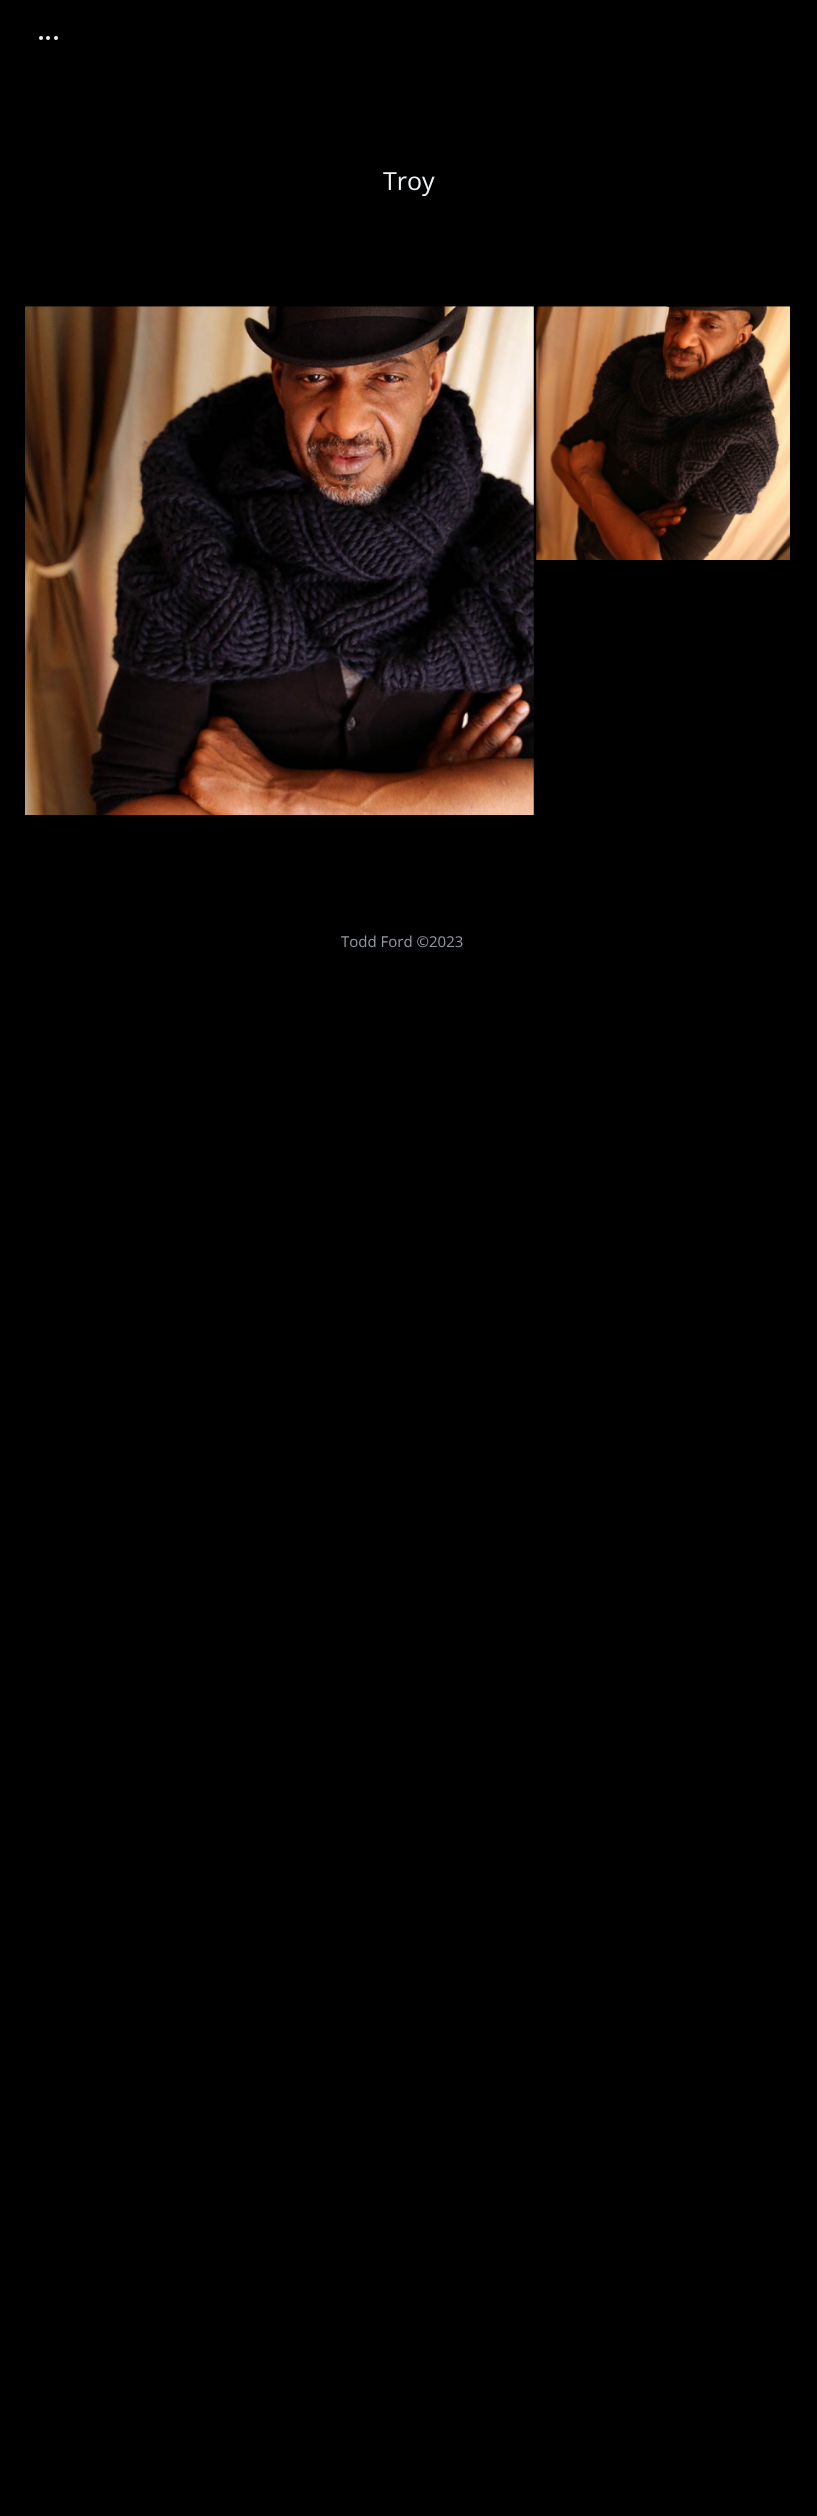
async function draw(canvas) {
	canvas.width = 817;
	canvas.height = 2516;
	const c = canvas.getContext('2d');
	c.miterLimit = 4;
	c.fontKerning = 'normal';
	async function loadImage(src) {
		const img = new Image();
		img.src = src;
		await img.decode();
		return img;
	}

	c.fillStyle = '#000';
	c.fillRect(0, 0, 817, 2516);
	c.fillStyle = '#f1f3f6';
	c.beginPath();
	c.arc(41, 38, 2, 0, 2 * Math.PI);
	c.fill();
	c.beginPath();
	c.arc(48, 38, 2, 0, 2 * Math.PI);
	c.fill();
	c.beginPath();
	c.arc(56, 38, 2, 0, 2 * Math.PI);
	c.fill();
	c.font = '25px Open Sans';
	c.fillText('Troy', 383, 190);
	c.drawImage(await loadImage('img1.png'), 25, 306, 509, 509);
	c.drawImage(await loadImage('img2.png'), 536, 306, 254, 254);
	c.font = '15px Open Sans';
	c.fillStyle = '#959ca6';
	c.fillText('Todd Ford ©2023', 341, 947);
}

draw(document.querySelector('canvas'));
